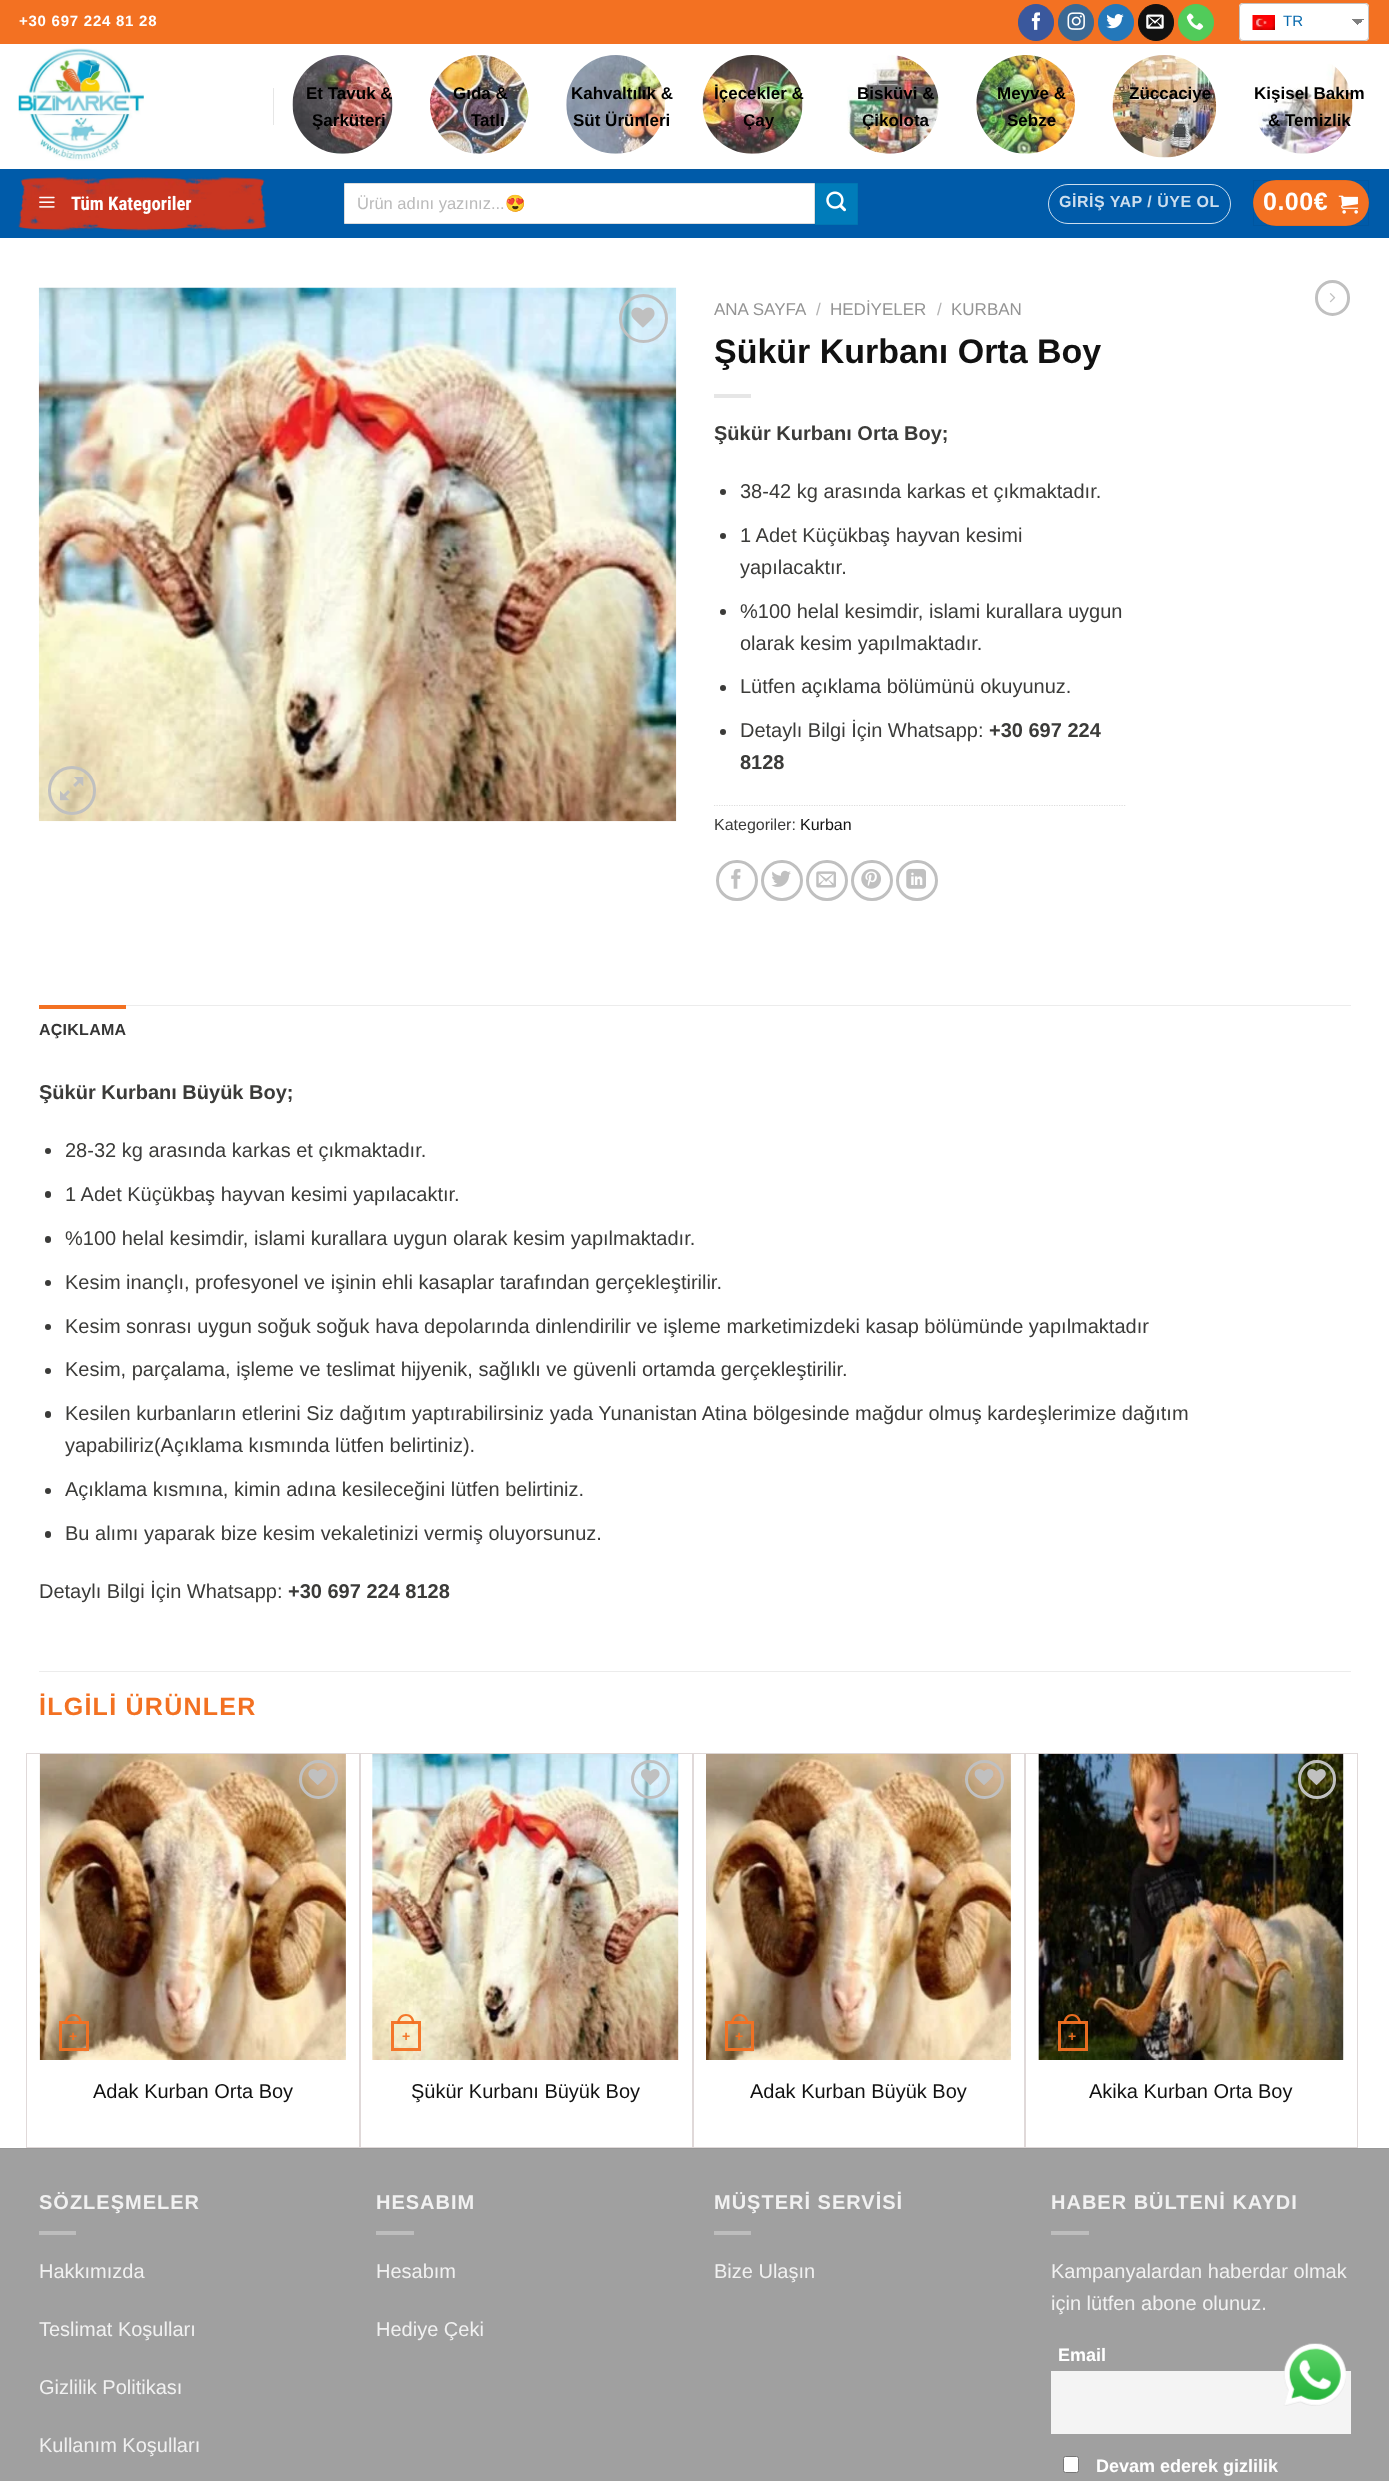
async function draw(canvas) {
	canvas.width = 1389;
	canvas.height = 2481;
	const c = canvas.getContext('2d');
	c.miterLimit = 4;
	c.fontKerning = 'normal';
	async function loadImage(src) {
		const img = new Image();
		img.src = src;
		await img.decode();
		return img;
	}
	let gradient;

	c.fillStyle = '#fff';
	c.fillRect(0, 0, 1389, 2481);
	c.fillStyle = '#f37122';
	c.fillRect(0, 0, 1389, 44);
	c.letterSpacing = '0.75px';
	c.font = 'bold 15px Liberation Sans';
	c.fillStyle = '#fff';
	c.fillText('+30 697 224 81 28', 19, 26);
	c.fillStyle = '#3a589d';
	c.beginPath();
	c.roundRect(1018.5, 4.5, 35, 36, 17.5);
	c.fill();
	c.strokeStyle = '#3a589d';
	c.stroke();
	c.drawImage(await loadImage('img1.png'), 1031, 12, 9, 18);
	c.fillStyle = '#3b6994';
	c.beginPath();
	c.roundRect(1058.5, 4.5, 35, 36, 17.5);
	c.fill();
	c.strokeStyle = '#3b6994';
	c.stroke();
	c.drawImage(await loadImage('img2.png'), 1067, 12, 18, 18);
	c.fillStyle = '#2478ba';
	c.beginPath();
	c.roundRect(1098.5, 4.5, 35, 36, 17.5);
	c.fill();
	c.strokeStyle = '#2478ba';
	c.stroke();
	c.drawImage(await loadImage('img3.png'), 1106, 14, 18, 15);
	c.fillStyle = '#111';
	c.beginPath();
	c.roundRect(1138.5, 4.5, 35, 36, 17.5);
	c.fill();
	c.strokeStyle = '#111';
	c.stroke();
	c.drawImage(await loadImage('img4.png'), 1146, 14, 18, 15);
	c.fillStyle = '#51cb5a';
	c.beginPath();
	c.roundRect(1178.5, 4.5, 35, 36, 17.5);
	c.fill();
	c.strokeStyle = '#51cb5a';
	c.stroke();
	c.drawImage(await loadImage('img5.png'), 1186, 13, 18, 17);
	c.fillStyle = '#fff';
	c.beginPath();
	c.roundRect(1239, 3, 130, 38, 4);
	c.fill();
	gradient = c.createLinearGradient(1358, 19, 1364, 25);
	gradient.addColorStop(0.5, '#808080');
	gradient.addColorStop(0.5, '#fff');
	c.fillStyle = gradient;
	c.fillRect(1358, 19, 6, 5);
	gradient = c.createLinearGradient(1351, 25, 1358, 19);
	gradient.addColorStop(0.5, '#fff');
	gradient.addColorStop(0.5, '#808080');
	c.fillStyle = gradient;
	c.fillRect(1351, 19, 7, 6);
	c.beginPath();
	c.roundRect(1239.5, 3.5, 129, 37, 3.5);
	c.strokeStyle = '#c1c1c1';
	c.stroke();
	c.drawImage(await loadImage('img6.png'), 1252, 15, 23, 15);
	c.letterSpacing = '0px';
	c.font = '15px Liberation Sans';
	c.fillStyle = '#0769ad';
	c.fillText('TR', 1283, 26);
	c.drawImage(await loadImage('img7.png'), 18, 48, 126, 113);
	c.fillStyle = '#e6e6e6';
	c.fillRect(273, 88, 1, 37);
	c.drawImage(await loadImage('img8.png'), 292, 55, 101, 99);
	c.font = 'bold 17px Liberation Sans';
	c.fillStyle = '#000';
	c.fillText('Et Tavuk &', 306, 99);
	c.fillText('Şarküteri', 312, 126);
	c.drawImage(await loadImage('img9.png'), 430, 55, 99, 99);
	c.fillText('Gıda &', 453, 99);
	c.fillText('Tatlı', 471, 126);
	c.drawImage(await loadImage('img10.png'), 566, 55, 99, 99);
	c.fillText('Kahvaltılık &', 571, 99);
	c.fillText('Süt Ürünleri', 573, 126);
	c.drawImage(await loadImage('img11.png'), 702, 55, 101, 99);
	c.fillText('İçecekler &', 714, 99);
	c.fillText('Çay', 743, 126);
	c.drawImage(await loadImage('img12.png'), 847, 55, 92, 99);
	c.fillText('Bisküvi &', 857, 99);
	c.fillText('Çikolota', 862, 126);
	c.drawImage(await loadImage('img13.png'), 976, 55, 99, 99);
	c.fillText('Meyve &', 997, 99);
	c.fillText('Sebze', 1007, 126);
	c.drawImage(await loadImage('img14.png'), 1112, 55, 105, 103);
	c.fillText('Züccaciye', 1129, 99);
	c.drawImage(await loadImage('img15.png'), 1258, 64, 95, 90);
	c.fillText('Kişisel Bakım', 1254, 99);
	c.fillText('& Temizlik', 1268, 126);
	c.fillStyle = '#005ba9';
	c.fillRect(0, 169, 1389, 69);
	c.fillStyle = '#06589e';
	c.fillRect(19, 169, 1352, 1);
	c.drawImage(await loadImage('img16.png'), 18, 177, 249, 54);
	c.drawImage(await loadImage('img17.png'), 39, 196, 16, 12);
	c.font = 'bold 18.75px Roboto Condensed';
	c.fillStyle = '#fff';
	c.fillText('Tüm Kategoriler', 71, 210);
	c.beginPath();
	c.rect(344.5, 183.5, 470, 40);
	c.fill();
	c.strokeStyle = '#ddd';
	c.stroke();
	c.font = '16.5px Liberation Sans';
	c.fillStyle = '#bababa';
	c.fillText('Ürün adını yazınız...', 357, 209);
	c.font = '16.5px Noto Color Emoji';
	c.fillText('😍', 505, 209);
	c.fillStyle = '#007cba';
	c.beginPath();
	c.rect(815.5, 183.5, 42, 41);
	c.fill();
	c.strokeStyle = '#0076b1';
	c.stroke();
	c.drawImage(await loadImage('img18.png'), 826, 191, 20, 21);
	c.beginPath();
	c.roundRect(1048.5, 184.5, 182, 39, 19.5);
	c.strokeStyle = '#ccdeee';
	c.stroke();
	c.letterSpacing = '0.5px';
	c.font = 'bold 16px Liberation Sans';
	c.fillStyle = '#ccdeee';
	c.fillText('GİRİŞ YAP / ÜYE OL', 1059, 207);
	c.fillStyle = '#f37122';
	c.beginPath();
	c.roundRect(1253, 180, 116, 46, 23);
	c.fill();
	c.strokeStyle = '#0000000d';
	c.strokeRect(1253.5, 180.5, 115, 45);
	c.font = 'bold 25px Liberation Sans';
	c.fillStyle = '#fff';
	c.fillText('0.00€', 1263, 210);
	c.drawImage(await loadImage('img19.png'), 1338, 195, 20, 19);
	c.drawImage(await loadImage('img20.png'), 38, 287, 639, 535);
	c.beginPath();
	c.arc(643.5, 318.5, 23, 0, 2 * Math.PI);
	c.strokeStyle = '#c0c0c0';
	c.lineWidth = 3;
	c.stroke();
	c.drawImage(await loadImage('img21.png'), 631, 307, 24, 21);
	c.beginPath();
	c.roundRect(49.5, 767.5, 45, 46, 22.5);
	c.stroke();
	c.drawImage(await loadImage('img22.png'), 60, 777, 24, 24);
	c.letterSpacing = '0px';
	c.font = '17px Liberation Sans';
	c.fillStyle = '#949494';
	c.fillText('ANA SAYFA', 714, 315);
	c.fillStyle = '#b2b2b2';
	c.fillText('/', 816, 315);
	c.fillStyle = '#949494';
	c.fillText('HEDİYELER', 830, 315);
	c.fillStyle = '#b2b2b2';
	c.fillText('/', 937, 315);
	c.fillStyle = '#949494';
	c.fillText('KURBAN', 951, 315);
	c.font = 'bold 34px Liberation Sans';
	c.fillStyle = '#111';
	c.fillText('Şükür Kurbanı Orta Boy', 714, 363);
	c.fillStyle = '#e6e6e6';
	c.fillRect(714, 394, 37, 4);
	c.font = 'bold 20px Liberation Sans';
	c.fillStyle = '#3b3b39';
	c.fillText('Şükür Kurbanı Orta Boy;', 714, 440);
	c.beginPath();
	c.arc(723, 492, 3, 0, 2 * Math.PI);
	c.fill();
	c.font = '20px Liberation Sans';
	c.fillText('38-42 kg arasında karkas et çıkmaktadır.', 740, 498);
	c.beginPath();
	c.arc(723, 536, 3, 0, 2 * Math.PI);
	c.fill();
	c.fillText('1 Adet Küçükbaş hayvan kesimi', 740, 542);
	c.fillText('yapılacaktır.', 740, 574);
	c.beginPath();
	c.arc(723, 612, 3, 0, 2 * Math.PI);
	c.fill();
	c.fillText('%100 helal kesimdir, islami kurallara uygun', 740, 618);
	c.fillText('olarak kesim yapılmaktadır.', 740, 650);
	c.beginPath();
	c.arc(723, 688, 3, 0, 2 * Math.PI);
	c.fill();
	c.fillText('Lütfen açıklama bölümünü okuyunuz.', 740, 693);
	c.beginPath();
	c.arc(723, 732, 3, 0, 2 * Math.PI);
	c.fill();
	c.fillText('Detaylı Bilgi İçin Whatsapp:', 740, 737);
	c.font = 'bold 20px Liberation Sans';
	c.fillText('+30 697 224', 989, 737);
	c.fillText('8128', 740, 769);
	c.beginPath();
	c.moveTo(714, 805.5);
	c.lineTo(1126, 805.5);
	c.strokeStyle = '#ddd';
	c.lineWidth = 1.2;
	c.setLineDash([1.25, 1.25]);
	c.stroke();
	c.font = '16px Liberation Sans';
	c.fillText('Kategoriler:', 714, 830);
	c.fillStyle = '#111';
	c.fillText('Kurban', 800, 830);
	c.beginPath();
	c.roundRect(717.5, 861.5, 39, 38, 19);
	c.strokeStyle = '#c0c0c0';
	c.lineWidth = 3;
	c.setLineDash([]);
	c.stroke();
	c.drawImage(await loadImage('img23.png'), 731, 868, 10, 21);
	c.beginPath();
	c.roundRect(762.5, 861.5, 39, 38, 19);
	c.stroke();
	c.drawImage(await loadImage('img24.png'), 771, 870, 20, 17);
	c.beginPath();
	c.roundRect(807.5, 861.5, 39, 38, 19);
	c.stroke();
	c.drawImage(await loadImage('img25.png'), 816, 871, 20, 17);
	c.beginPath();
	c.roundRect(852.5, 861.5, 39, 38, 19);
	c.stroke();
	c.drawImage(await loadImage('img26.png'), 861, 869, 20, 20);
	c.beginPath();
	c.roundRect(897.5, 861.5, 39, 38, 19);
	c.stroke();
	c.drawImage(await loadImage('img27.png'), 906, 868, 20, 21);
	c.beginPath();
	c.roundRect(1316.5, 281.5, 32, 33, 16);
	c.stroke();
	c.drawImage(await loadImage('img28.png'), 1329, 293, 7, 10);
	c.fillStyle = '#ececec';
	c.fillRect(126, 1005, 1225, 1);
	c.fillStyle = '#f37122';
	c.fillRect(39, 1005, 87, 4);
	c.letterSpacing = '0.25px';
	c.font = 'bold 16px Liberation Sans';
	c.fillStyle = '#353535';
	c.fillText('AÇIKLAMA', 39, 1035);
	c.letterSpacing = '0px';
	c.font = 'bold 20px Liberation Sans';
	c.fillStyle = '#3b3b39';
	c.fillText('Şükür Kurbanı Büyük Boy;', 39, 1099);
	c.beginPath();
	c.arc(48, 1151, 3, 0, 2 * Math.PI);
	c.fill();
	c.font = '20px Liberation Sans';
	c.fillText('28-32 kg arasında karkas et çıkmaktadır.', 65, 1157);
	c.beginPath();
	c.roundRect(45, 1191, 6, 7, 3);
	c.fill();
	c.fillText('1 Adet Küçükbaş hayvan kesimi yapılacaktır.', 65, 1201);
	c.beginPath();
	c.roundRect(45, 1236, 6, 7, 3);
	c.fill();
	c.fillText('%100 helal kesimdir, islami kurallara uygun olarak kesim yapılmaktadır.', 65, 1245);
	c.beginPath();
	c.arc(48, 1283, 3, 0, 2 * Math.PI);
	c.fill();
	c.fillText('Kesim inançlı, profesyonel ve işinin ehli kasaplar tarafından gerçekleştirilir.', 65, 1289);
	c.beginPath();
	c.arc(48, 1327, 3, 0, 2 * Math.PI);
	c.fill();
	c.fillText('Kesim sonrası uygun soğuk soğuk hava depolarında dinlendirilir ve işleme marketimizdeki kasap bölümünde yapılmaktadır', 65, 1333);
	c.beginPath();
	c.arc(48, 1371, 3, 0, 2 * Math.PI);
	c.fill();
	c.fillText('Kesim, parçalama, işleme ve teslimat hijyenik, sağlıklı ve güvenli ortamda gerçekleştirilir.', 65, 1376);
	c.beginPath();
	c.roundRect(45, 1411, 6, 7, 3);
	c.fill();
	c.fillText('Kesilen kurbanların etlerini Siz dağıtım yaptırabilirsiniz yada Yunanistan Atina bölgesinde mağdur olmuş kardeşlerimize dağıtım', 65, 1420);
	c.fillText('yapabiliriz(Açıklama kısmında lütfen belirtiniz).', 65, 1452);
	c.beginPath();
	c.arc(48, 1491, 3, 0, 2 * Math.PI);
	c.fill();
	c.fillText('Açıklama kısmına, kimin adına kesileceğini lütfen belirtiniz.', 65, 1496);
	c.beginPath();
	c.roundRect(45, 1531, 6, 7, 3);
	c.fill();
	c.fillText('Bu alımı yaparak bize kesim vekaletinizi vermiş oluyorsunuz.', 65, 1540);
	c.fillText('Detaylı Bilgi İçin Whatsapp:', 39, 1598);
	c.font = 'bold 20px Liberation Sans';
	c.fillText('+30 697 224 8128', 288, 1598);
	c.fillStyle = '#ececec';
	c.fillRect(39, 1671, 1312, 1);
	c.letterSpacing = '1.25px';
	c.font = 'bold 25px Liberation Sans';
	c.fillStyle = '#f37122';
	c.fillText('İLGİLİ ÜRÜNLER', 39, 1715);
	c.strokeStyle = '#e0d9d9';
	c.lineWidth = 1;
	c.strokeRect(26.5, 1753.5, 333, 394);
	c.drawImage(await loadImage('img29.png'), 39, 1753, 307, 307);
	c.beginPath();
	c.arc(318.5, 1779.5, 18, 0, 2 * Math.PI);
	c.strokeStyle = '#c0c0c0';
	c.lineWidth = 3;
	c.stroke();
	c.drawImage(await loadImage('img30.png'), 308, 1769, 19, 16);
	c.strokeStyle = '#f37122f2';
	c.strokeRect(60.5, 2022.5, 27, 27);
	c.fillStyle = '#f37122f2';
	c.beginPath();
	c.moveTo(73.5, 2014);
	c.bezierCurveTo(79.5, 2014, 82, 2018.5, 82, 2024);
	c.lineTo(64.5, 2024);
	c.bezierCurveTo(64.5, 2018.5, 67.5, 2014, 73.5, 2014);
	c.closePath();
	c.moveTo(73.5, 2016);
	c.bezierCurveTo(78, 2016, 79.5, 2020, 79.5, 2024);
	c.lineTo(67, 2024);
	c.bezierCurveTo(67, 2020, 69, 2016, 73.5, 2016);
	c.closePath();
	c.fill('evenodd');
	c.letterSpacing = '0px';
	c.font = 'bold 14px Liberation Sans';
	c.fillStyle = '#f37122';
	c.fillText('+', 69, 2041);
	c.font = '20px Liberation Sans';
	c.fillStyle = '#111';
	c.fillText('Adak Kurban Orta Boy', 93, 2098);
	c.strokeStyle = '#e0d9d9';
	c.lineWidth = 1;
	c.strokeRect(360.5, 1753.5, 332, 394);
	c.drawImage(await loadImage('img31.png'), 372, 1753, 307, 307);
	c.beginPath();
	c.arc(650.5, 1779.5, 18, 0, 2 * Math.PI);
	c.strokeStyle = '#c0c0c0';
	c.lineWidth = 3;
	c.stroke();
	c.drawImage(await loadImage('img32.png'), 641, 1769, 19, 16);
	c.strokeStyle = '#f37122f2';
	c.strokeRect(392.5, 2022.5, 27, 27);
	c.fillStyle = '#f37122f2';
	c.beginPath();
	c.moveTo(406, 2014);
	c.bezierCurveTo(412, 2014, 414.5, 2018.5, 414.5, 2024);
	c.lineTo(397, 2024);
	c.bezierCurveTo(397, 2018.5, 400, 2014, 406, 2014);
	c.closePath();
	c.moveTo(406, 2016);
	c.bezierCurveTo(410.5, 2016, 412, 2020, 412, 2024);
	c.lineTo(399.5, 2024);
	c.bezierCurveTo(399.5, 2020, 401.5, 2016, 406, 2016);
	c.closePath();
	c.fill('evenodd');
	c.font = 'bold 14px Liberation Sans';
	c.fillStyle = '#f3772a';
	c.fillText('+', 402, 2041);
	c.font = '20px Liberation Sans';
	c.fillStyle = '#111';
	c.fillText('Şükür Kurbanı Büyük Boy', 411, 2098);
	c.strokeStyle = '#e0d9d9';
	c.lineWidth = 1;
	c.strokeRect(693.5, 1753.5, 331, 394);
	c.drawImage(await loadImage('img33.png'), 706, 1753, 305, 307);
	c.beginPath();
	c.arc(984.5, 1779.5, 18, 0, 2 * Math.PI);
	c.strokeStyle = '#c0c0c0';
	c.lineWidth = 3;
	c.stroke();
	c.drawImage(await loadImage('img34.png'), 974, 1769, 20, 16);
	c.strokeStyle = '#f37122f2';
	c.strokeRect(726.5, 2022.5, 26, 27);
	c.fillStyle = '#f37122f2';
	c.beginPath();
	c.moveTo(739.5, 2014);
	c.bezierCurveTo(745.5, 2014, 748.5, 2018.5, 748.5, 2024);
	c.lineTo(731, 2024);
	c.bezierCurveTo(731, 2018.5, 734, 2014, 739.5, 2014);
	c.closePath();
	c.moveTo(739.5, 2016);
	c.bezierCurveTo(744, 2016, 746, 2020, 746, 2024);
	c.lineTo(733.5, 2024);
	c.bezierCurveTo(733.5, 2020, 735.5, 2016, 739.5, 2016);
	c.closePath();
	c.fill('evenodd');
	c.font = 'bold 14px Liberation Sans';
	c.fillStyle = '#f37122';
	c.fillText('+', 735, 2041);
	c.font = '20px Liberation Sans';
	c.fillStyle = '#111';
	c.fillText('Adak Kurban Büyük Boy', 750, 2098);
	c.strokeStyle = '#e0d9d9';
	c.lineWidth = 1;
	c.strokeRect(1025.5, 1753.5, 332, 394);
	c.drawImage(await loadImage('img35.png'), 1038, 1753, 306, 307);
	c.beginPath();
	c.roundRect(1299.5, 1761.5, 35, 36, 17.5);
	c.strokeStyle = '#c0c0c0';
	c.lineWidth = 3;
	c.stroke();
	c.drawImage(await loadImage('img36.png'), 1307, 1769, 19, 16);
	c.strokeStyle = '#f37122f2';
	c.strokeRect(1059.5, 2022.5, 27, 27);
	c.fillStyle = '#f37122f2';
	c.beginPath();
	c.moveTo(1072, 2014);
	c.bezierCurveTo(1078, 2014, 1081, 2018.5, 1081, 2024);
	c.lineTo(1063.5, 2024);
	c.bezierCurveTo(1063.5, 2018.5, 1066.5, 2014, 1072, 2014);
	c.closePath();
	c.moveTo(1072, 2016);
	c.bezierCurveTo(1076.5, 2016, 1078.5, 2020, 1078.5, 2024);
	c.lineTo(1066, 2024);
	c.bezierCurveTo(1066, 2020, 1068, 2016, 1072, 2016);
	c.closePath();
	c.fill('evenodd');
	c.font = 'bold 14px Liberation Sans';
	c.fillStyle = '#e86d21';
	c.fillText('+', 1068, 2041);
	c.font = '20px Liberation Sans';
	c.fillStyle = '#111';
	c.fillText('Akika Kurban Orta Boy', 1089, 2098);
	c.fillStyle = '#a0a0a0';
	c.fillRect(0, 2149, 1389, 332);
	c.fillStyle = '#989898';
	c.fillRect(0, 2148, 1389, 1);
	c.letterSpacing = '1px';
	c.font = 'bold 20px Liberation Sans';
	c.fillStyle = '#f1f1f1';
	c.fillText('SÖZLEŞMELER', 39, 2209);
	c.fillStyle = '#bdbdbd';
	c.fillRect(39, 2231, 37, 4);
	c.letterSpacing = '0px';
	c.font = '20px Liberation Sans';
	c.fillStyle = '#f1f1f1';
	for (const [text, x, y] of [
		['Hakkımızda', 39, 2278],
		['Teslimat Koşulları', 39, 2336],
		['Gizlilik Politikası', 39, 2394],
		['Kullanım Koşulları', 39, 2452],
	]) {
		c.fillText(text, x, y);
	}
	c.letterSpacing = '1px';
	c.font = 'bold 20px Liberation Sans';
	c.fillText('HESABIM', 376, 2209);
	c.fillStyle = '#bdbdbd';
	c.fillRect(376, 2231, 38, 4);
	c.letterSpacing = '0px';
	c.font = '20px Liberation Sans';
	c.fillStyle = '#f1f1f1';
	c.fillText('Hesabım', 376, 2278);
	c.fillText('Hediye Çeki', 376, 2336);
	c.letterSpacing = '1px';
	c.font = 'bold 20px Liberation Sans';
	c.fillText('MÜŞTERİ SERVİSİ', 714, 2209);
	c.fillStyle = '#bdbdbd';
	c.fillRect(714, 2231, 37, 4);
	c.letterSpacing = '0px';
	c.font = '20px Liberation Sans';
	c.fillStyle = '#f1f1f1';
	c.fillText('Bize Ulaşın', 714, 2278);
	c.letterSpacing = '1px';
	c.font = 'bold 20px Liberation Sans';
	c.fillText('HABER BÜLTENİ KAYDI', 1051, 2209);
	c.fillStyle = '#bdbdbd';
	c.fillRect(1051, 2231, 38, 4);
	c.letterSpacing = '0px';
	c.font = '20px Liberation Sans';
	c.fillStyle = '#f1f1f1';
	c.fillText('Kampanyalardan haberdar olmak', 1051, 2278);
	c.fillText('için lütfen abone olunuz.', 1051, 2310);
	c.font = 'bold 18px Liberation Sans';
	c.fillStyle = '#fff';
	c.fillText('Email', 1058, 2361);
	c.fillStyle = '#f4f4f4';
	c.fillRect(1051, 2371, 300, 63);
	c.fillStyle = '#fff';
	c.beginPath();
	c.roundRect(1063.5, 2456.5, 15, 16, 2);
	c.fill();
	c.strokeStyle = '#767676';
	c.lineWidth = 1;
	c.stroke();
	c.fillText('Devam ederek gizlilik', 1096, 2472);
	c.drawImage(await loadImage('img37.png'), 1283, 2343, 63, 63);
}

draw(document.querySelector('canvas'));
